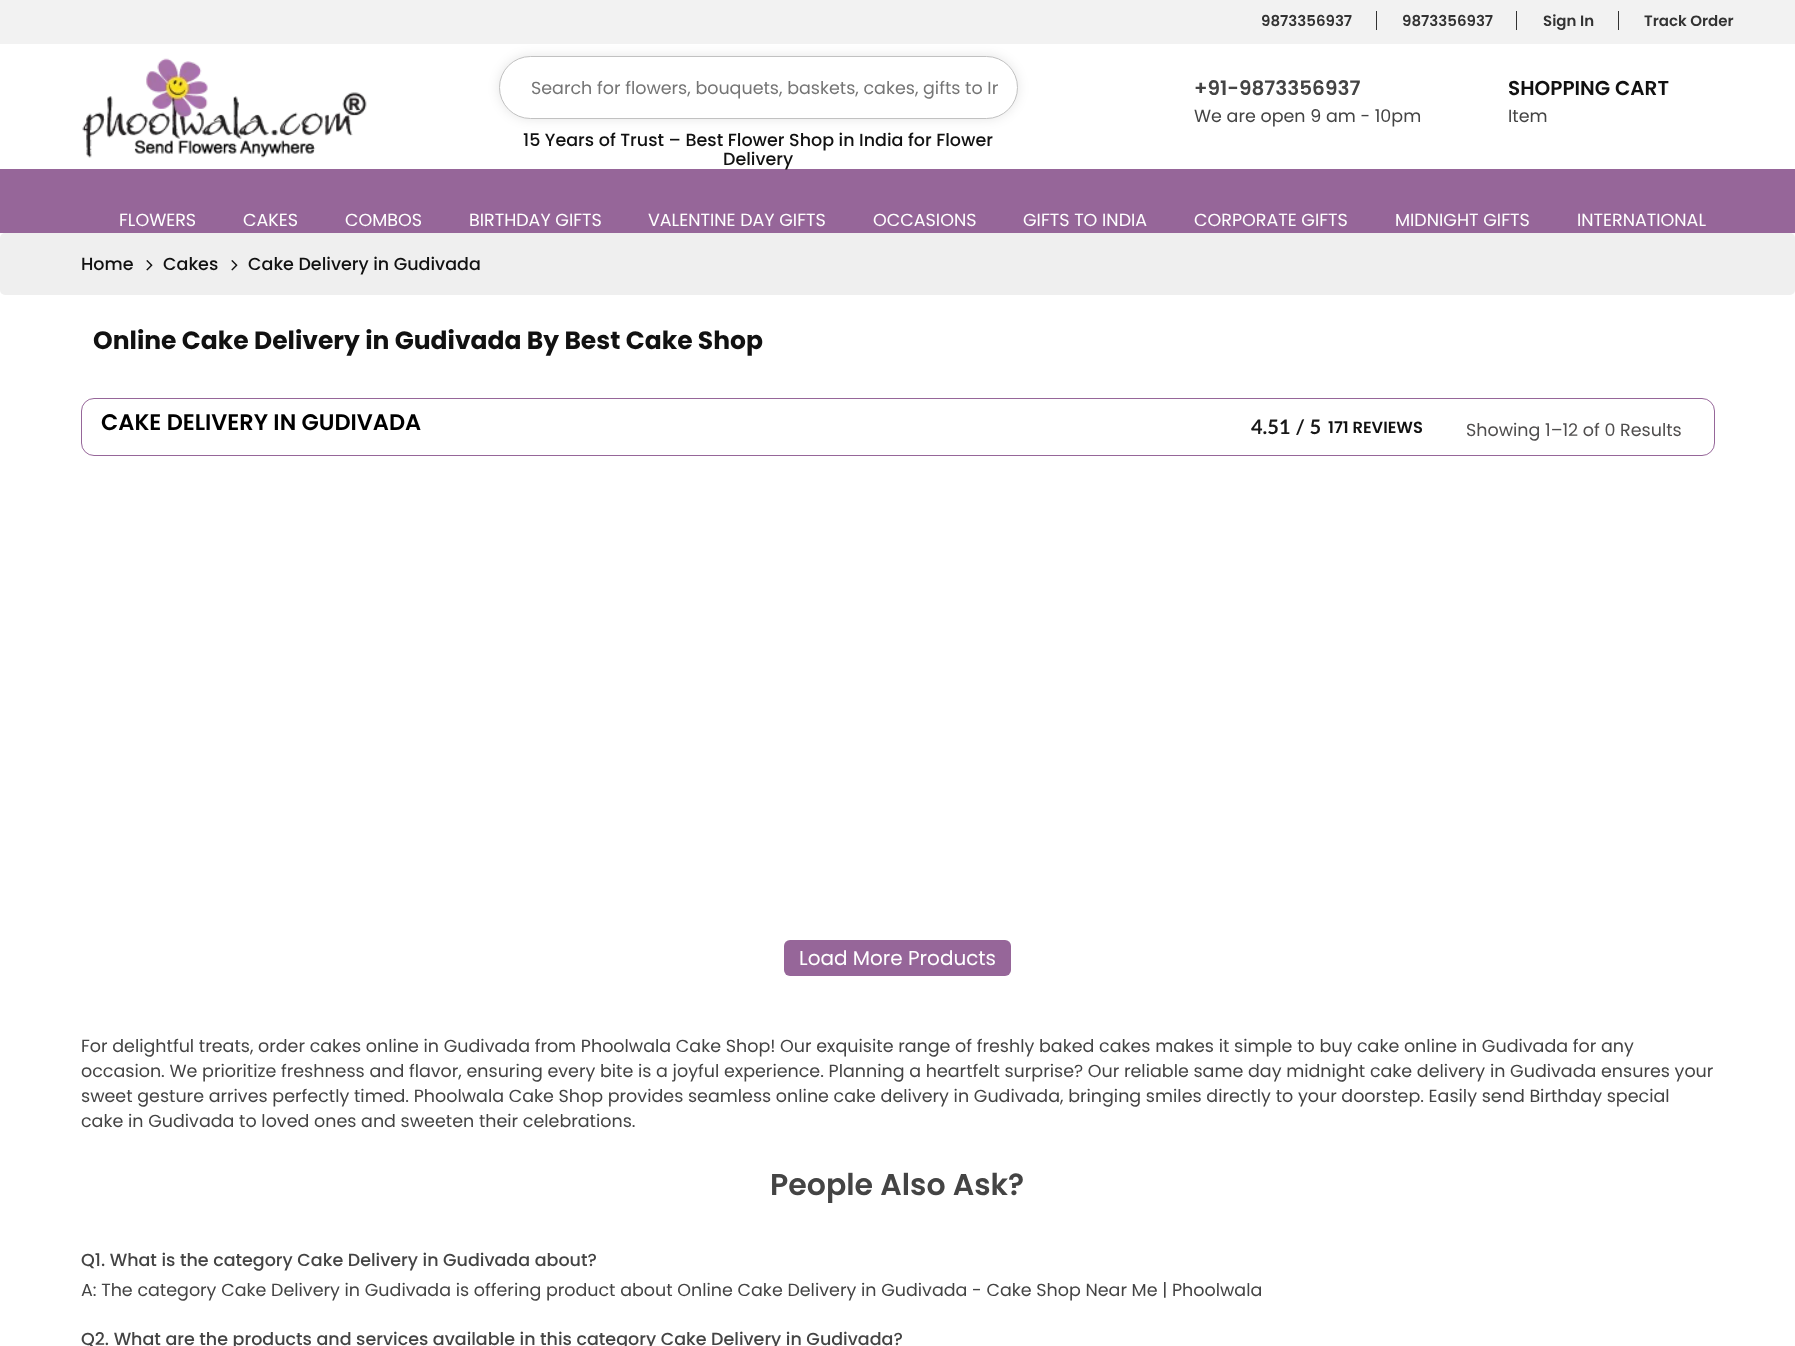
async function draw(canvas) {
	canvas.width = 1795;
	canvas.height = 1346;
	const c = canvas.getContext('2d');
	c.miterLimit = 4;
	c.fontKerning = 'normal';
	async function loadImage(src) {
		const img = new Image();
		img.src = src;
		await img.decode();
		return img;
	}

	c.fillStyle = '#fff';
	c.fillRect(0, 0, 1795, 1346);
	c.fillStyle = '#f2f2f2';
	c.fillRect(0, 0, 1795, 44);
	c.font = '600 15px Poppins';
	c.fillStyle = '#333';
	c.fillText('9873356937', 1261, 26);
	c.fillRect(1376, 11, 1, 19);
	c.fillText('9873356937', 1402, 26);
	c.fillRect(1516, 11, 1, 19);
	c.fillText('Sign In', 1543, 26);
	c.fillRect(1618, 11, 1, 19);
	c.fillText('Track Order', 1644, 26);
	c.drawImage(await loadImage('img1.png'), 82, 58, 285, 100);
	c.fillStyle = '#0000001a';
	c.filter = 'blur(6px)';
	c.beginPath();
	c.roundRect(499, 56, 519, 63, 31.5);
	c.fill();
	c.filter = 'none';
	c.fillStyle = '#fff';
	c.beginPath();
	c.roundRect(499.5, 56.5, 518, 62, 31);
	c.fill();
	c.strokeStyle = '#c1c1c1';
	c.stroke();
	c.save();
	c.beginPath();
	c.rect(531, 75, 467, 26);
	c.clip();
	c.font = '17.5px Poppins';
	c.fillStyle = '#757575';
	c.fillText('Search for flowers, bouquets, baskets, cakes, gifts to In', 531, 94);
	c.restore();
	c.font = '500 17.5px Poppins';
	c.fillStyle = '#111';
	c.fillText('15 Years of Trust – Best Flower Shop in India for Flower', 523, 146);
	c.fillStyle = '#966699';
	c.fillRect(0, 169, 1795, 64);
	c.fillStyle = '#111';
	c.fillText('Delivery', 723, 165);
	c.font = '600 20px Poppins';
	c.fillStyle = '#444';
	c.fillText('+91-9873356937', 1194, 95);
	c.font = '17.5px Poppins';
	c.fillText('We are open 9 am - 10pm', 1194, 122);
	c.font = '600 20px Poppins';
	c.fillStyle = '#111';
	c.fillText('SHOPPING CART', 1508, 95);
	c.font = '17.5px Poppins';
	c.fillStyle = '#444';
	c.fillText('Item', 1508, 122);
	c.fillStyle = '#fff';
	for (const [text, x, y] of [
		['FLOWERS', 119, 226],
		['CAKES', 243, 226],
		['COMBOS', 345, 226],
		['BIRTHDAY GIFTS', 469, 226],
		['VALENTINE DAY GIFTS', 648, 226],
		['OCCASIONS', 873, 226],
		['GIFTS TO INDIA', 1023, 226],
		['CORPORATE GIFTS', 1194, 226],
		['MIDNIGHT GIFTS', 1395, 226],
		['INTERNATIONAL', 1577, 226],
	]) {
		c.fillText(text, x, y);
	}
	c.fillStyle = '#efefef';
	c.beginPath();
	c.roundRect(0, 233, 1795, 62, 5);
	c.fill();
	c.font = '500 17.5px Poppins';
	c.fillStyle = '#111';
	c.fillText('Home', 81, 270);
	c.drawImage(await loadImage('img2.png'), 146, 260, 7, 11);
	c.fillText('Cakes', 163, 270);
	c.drawImage(await loadImage('img2.png'), 231, 260, 7, 11);
	c.fillText('Cake Delivery in Gudivada', 248, 270);
	c.font = 'bold 25px Poppins';
	c.fillText('Online Cake Delivery in Gudivada By Best Cake Shop', 93, 349);
	c.beginPath();
	c.roundRect(81.5, 398.5, 1633, 57, 12.5);
	c.strokeStyle = '#966699';
	c.stroke();
	c.font = '600 22.5px Poppins';
	c.fillStyle = '#000';
	c.fillText('CAKE DELIVERY IN GUDIVADA', 101, 430);
	c.font = 'bold 20px Lato';
	c.fillStyle = '#181818';
	c.fillText('4.51 / 5', 1251, 434);
	c.font = '600 16.25px Poppins';
	c.fillStyle = '#111';
	c.fillText('171 REVIEWS', 1328, 433);
	c.font = '17.5px Poppins';
	c.fillStyle = '#4f4d4d';
	c.fillText('Showing 1–12 of 0 Results', 1466, 436);
	c.fillStyle = '#966699';
	c.beginPath();
	c.roundRect(784, 940, 227, 36, 6);
	c.fill();
	c.font = '20px Poppins';
	c.fillStyle = '#fff';
	c.fillText('Load More Products', 799, 965);
	c.font = '17.5px Poppins';
	c.fillStyle = '#444';
	for (const [text, x, y] of [
		['For delightful treats, order cakes online in Gudivada from Phoolwala Cake Shop! Our exquisite range of freshly baked cakes makes it simple to buy cake online in Gudivada for any', 81, 1052],
		['occasion. We prioritize freshness and flavor, ensuring every bite is a joyful experience. Planning a heartfelt surprise? Our reliable same day midnight cake delivery in Gudivada ensures your', 81, 1077],
		['sweet gesture arrives perfectly timed. Phoolwala Cake Shop provides seamless online cake delivery in Gudivada, bringing smiles directly to your doorstep. Easily send Birthday special', 81, 1102],
		['cake in Gudivada to loved ones and sweeten their celebrations.', 81, 1127],
	]) {
		c.fillText(text, x, y);
	}
	c.font = '600 30px Poppins';
	c.fillText('People Also Ask?', 770, 1195);
	c.font = '500 17.5px Poppins';
	c.fillText('Q1. What is the category Cake Delivery in Gudivada about?', 81, 1266);
	c.font = '17.5px Poppins';
	c.fillText('A: The category Cake Delivery in Gudivada is offering product about Online Cake Delivery in Gudivada - Cake Shop Near Me | Phoolwala', 81, 1296);
	c.font = '500 17.5px Poppins';
	c.fillText('Q2. What are the products and services available in this category Cake Delivery in Gudivada?', 81, 1345);
}

draw(document.querySelector('canvas'));
